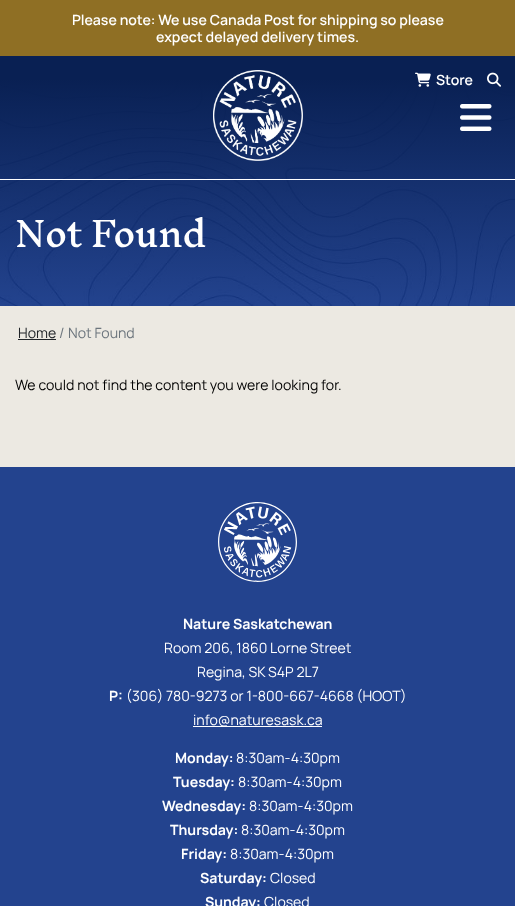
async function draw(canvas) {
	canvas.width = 515;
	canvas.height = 906;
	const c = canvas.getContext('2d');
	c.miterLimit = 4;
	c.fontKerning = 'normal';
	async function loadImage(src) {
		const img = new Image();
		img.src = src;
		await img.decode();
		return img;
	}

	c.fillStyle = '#ece9e2';
	c.fillRect(0, 0, 515, 906);
	c.fillStyle = '#8f6f24';
	c.fillRect(0, 0, 515, 56);
	c.font = '600 14.1px Manrope';
	c.fillStyle = '#fff';
	c.fillText('Please note: We use Canada Post for shipping so please', 72, 25);
	c.fillText('expect delayed delivery times.', 156, 42);
	c.drawImage(await loadImage('img1.png'), 0, 56, 515, 250);
	c.fillRect(0, 179, 515, 1);
	c.drawImage(await loadImage('img2.png'), 213, 70, 90, 91);
	c.drawImage(await loadImage('img3.png'), 415, 72, 16, 15);
	c.fillText('Store', 436, 85);
	c.drawImage(await loadImage('img4.png'), 487, 72, 14, 15);
	c.drawImage(await loadImage('img5.png'), 460, 104, 32, 27);
	c.letterSpacing = '-0.75px';
	c.font = '34.5px Inknut Antiqua';
	c.fillText('Not Found', 15, 247);
	c.letterSpacing = '0px';
	c.font = '14.1px Manrope';
	c.fillStyle = '#212529';
	c.fillText('Home', 18, 338);
	c.fillRect(18, 339, 38, 1);
	c.fillStyle = '#6c757d';
	c.fillText('/', 59, 338);
	c.fillText('Not Found', 68, 338);
	c.fillStyle = '#000';
	c.fillText('We could not find the content you were looking for.', 15, 390);
	c.fillStyle = '#23438e';
	c.fillRect(0, 467, 515, 439);
	c.drawImage(await loadImage('img6.png'), 218, 502, 79, 80);
	c.font = 'bold 14.1px Manrope';
	c.fillStyle = '#fff';
	c.fillText('Nature Saskatchewan', 183, 629);
	c.font = '14.1px Manrope';
	c.fillText('Room 206, 1860 Lorne Street', 164, 653);
	c.fillText('Regina, SK S4P 2L7', 197, 677);
	c.font = 'bold 14.1px Manrope';
	c.fillText('P:', 109, 701);
	c.font = '14.1px Manrope';
	c.fillText('(306) 780-9273 or 1-800-667-4668 (HOOT)', 126, 701);
	c.fillRect(193, 726, 129, 1);
	c.fillText('info@naturesask.ca', 193, 725);
	c.font = 'bold 14.1px Manrope';
	c.fillText('Monday:', 175, 763);
	c.font = '14.1px Manrope';
	c.fillText('8:30am-4:30pm', 236, 763);
	c.font = 'bold 14.1px Manrope';
	c.fillText('Tuesday:', 173, 787);
	c.font = '14.1px Manrope';
	c.fillText('8:30am-4:30pm', 238, 787);
	c.font = 'bold 14.1px Manrope';
	c.fillText('Wednesday:', 162, 811);
	c.font = '14.1px Manrope';
	c.fillText('8:30am-4:30pm', 249, 811);
	c.font = 'bold 14.1px Manrope';
	c.fillText('Thursday:', 170, 835);
	c.font = '14.1px Manrope';
	c.fillText('8:30am-4:30pm', 241, 835);
	c.font = 'bold 14.1px Manrope';
	c.fillText('Friday:', 181, 859);
	c.font = '14.1px Manrope';
	c.fillText('8:30am-4:30pm', 230, 859);
	c.font = 'bold 14.1px Manrope';
	c.fillText('Saturday:', 200, 883);
	c.font = '14.1px Manrope';
	c.fillText('Closed', 270, 883);
	c.font = 'bold 14.1px Manrope';
	c.fillText('Sunday:', 205, 907);
	c.font = '14.1px Manrope';
	c.fillText('Closed', 264, 907);
}

draw(document.querySelector('canvas'));
